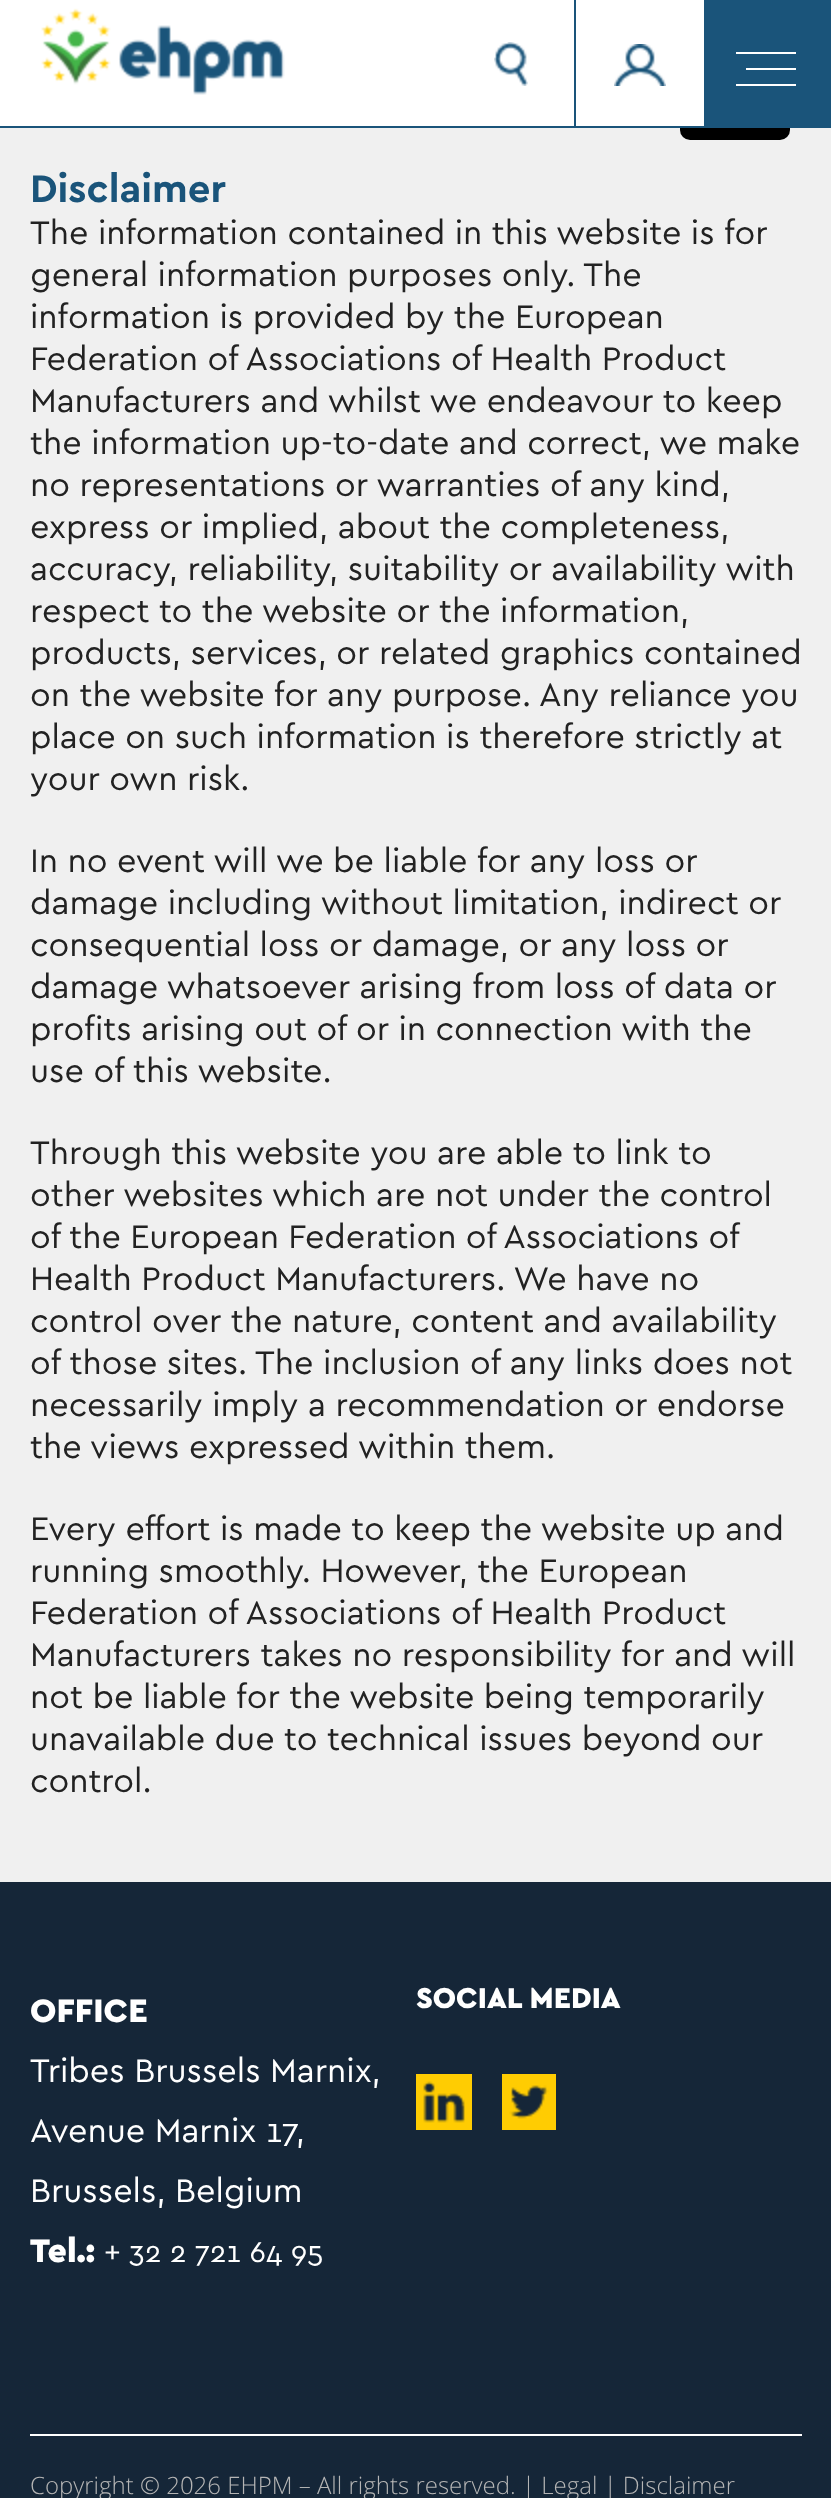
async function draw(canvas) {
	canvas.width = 831;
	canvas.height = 2498;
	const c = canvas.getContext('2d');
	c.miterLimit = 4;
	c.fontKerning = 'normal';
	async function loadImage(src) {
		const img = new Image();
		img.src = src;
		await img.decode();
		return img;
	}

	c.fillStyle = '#f0f0f0';
	c.fillRect(0, 0, 831, 2498);
	c.fillStyle = '#000';
	c.beginPath();
	c.roundRect(680, 30, 110, 110, 10);
	c.fill();
	c.fillStyle = '#fff';
	c.fillRect(0, 0, 704, 126);
	c.drawImage(await loadImage('img1.png'), 41, 8, 244, 87);
	c.fillStyle = '#1a547a';
	c.fillRect(574, 0, 2, 128);
	c.drawImage(await loadImage('img2.png'), 494, 42, 34, 44);
	c.drawImage(await loadImage('img3.png'), 614, 44, 52, 42);
	for (const [x, y, w, h, color] of [
		[704, 0, 127, 126, '#1a547a'],
		[736, 52, 60, 2, '#fff'],
		[746, 68, 50, 2, '#fff'],
		[736, 84, 60, 2, '#fff'],
		[0, 126, 831, 2, '#1a547a'],
	]) {
		c.fillStyle = color;
		c.fillRect(x, y, w, h);
	}
	c.font = 'bold 40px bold';
	c.fillText('Disclaimer', 30, 202);
	c.font = '34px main';
	c.fillStyle = '#222';
	for (const [text, x, y] of [
		['The information contained in this website is for', 30, 244],
		['general information purposes only. The', 30, 286],
		['information is provided by the European', 30, 328],
		['Federation of Associations of Health Product', 30, 370],
		['Manufacturers and whilst we endeavour to keep', 30, 412],
		['the information up-to-date and correct, we make', 30, 454],
		['no representations or warranties of any kind,', 30, 496],
		['express or implied, about the completeness,', 30, 538],
		['accuracy, reliability, suitability or availability with', 30, 580],
		['respect to the website or the information,', 30, 622],
		['products, services, or related graphics contained', 30, 664],
		['on the website for any purpose. Any reliance you', 30, 706],
		['place on such information is therefore strictly at', 30, 748],
		['your own risk.', 30, 790],
		['In no event will we be liable for any loss or', 30, 872],
		['damage including without limitation, indirect or', 30, 914],
		['consequential loss or damage, or any loss or', 30, 956],
		['damage whatsoever arising from loss of data or', 30, 998],
		['profits arising out of or in connection with the', 30, 1040],
		['use of this website.', 30, 1082],
		['Through this website you are able to link to', 30, 1164],
		['other websites which are not under the control', 30, 1206],
	]) {
		c.fillText(text, x, y);
	}
	c.wordSpacing = '-0.25px';
	c.fillText('of the European Federation of Associations of', 30, 1248);
	c.wordSpacing = '0px';
	for (const [text, x, y] of [
		['Health Product Manufacturers. We have no', 30, 1290],
		['control over the nature, content and availability', 30, 1332],
		['of those sites. The inclusion of any links does not', 30, 1374],
		['necessarily imply a recommendation or endorse', 30, 1416],
		['the views expressed within them.', 30, 1458],
		['Every effort is made to keep the website up and', 30, 1540],
		['running smoothly. However, the European', 30, 1582],
		['Federation of Associations of Health Product', 30, 1624],
		['Manufacturers takes no responsibility for and will', 30, 1666],
		['not be liable for the website being temporarily', 30, 1708],
		['unavailable due to technical issues beyond our', 30, 1750],
		['control.', 30, 1792],
	]) {
		c.fillText(text, x, y);
	}
	c.fillStyle = '#152638';
	c.fillRect(0, 1882, 831, 616);
	c.font = '900 34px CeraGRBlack';
	c.fillStyle = '#fff';
	c.fillText('OFFICE', 30, 2022);
	c.font = '34px main';
	for (const [text, x, y] of [
		['Tribes Brussels Marnix,', 30, 2082],
		['Avenue Marnix 17,', 30, 2142],
		['Brussels, Belgium', 30, 2202],
	]) {
		c.fillText(text, x, y);
	}
	c.font = '900 34px CeraGRBlack';
	c.fillText('Tel.:', 30, 2262);
	c.font = '30px main';
	c.fillText('+ 32 2 721 64 95', 104, 2262);
	c.font = '900 30px CeraGRBlack';
	c.fillText('SOCIAL MEDIA', 416, 2008);
	c.drawImage(await loadImage('img4.png'), 416, 2074, 56, 56);
	c.drawImage(await loadImage('img5.png'), 502, 2074, 54, 56);
	c.fillRect(30, 2434, 772, 2);
	c.font = '300 24px Open Sans';
	c.fillStyle = '#b5b5b5';
	c.fillText('Copyright © 2026 EHPM – All rights reserved. | Legal | Disclaimer', 30, 2494);
}

draw(document.querySelector('canvas'));
